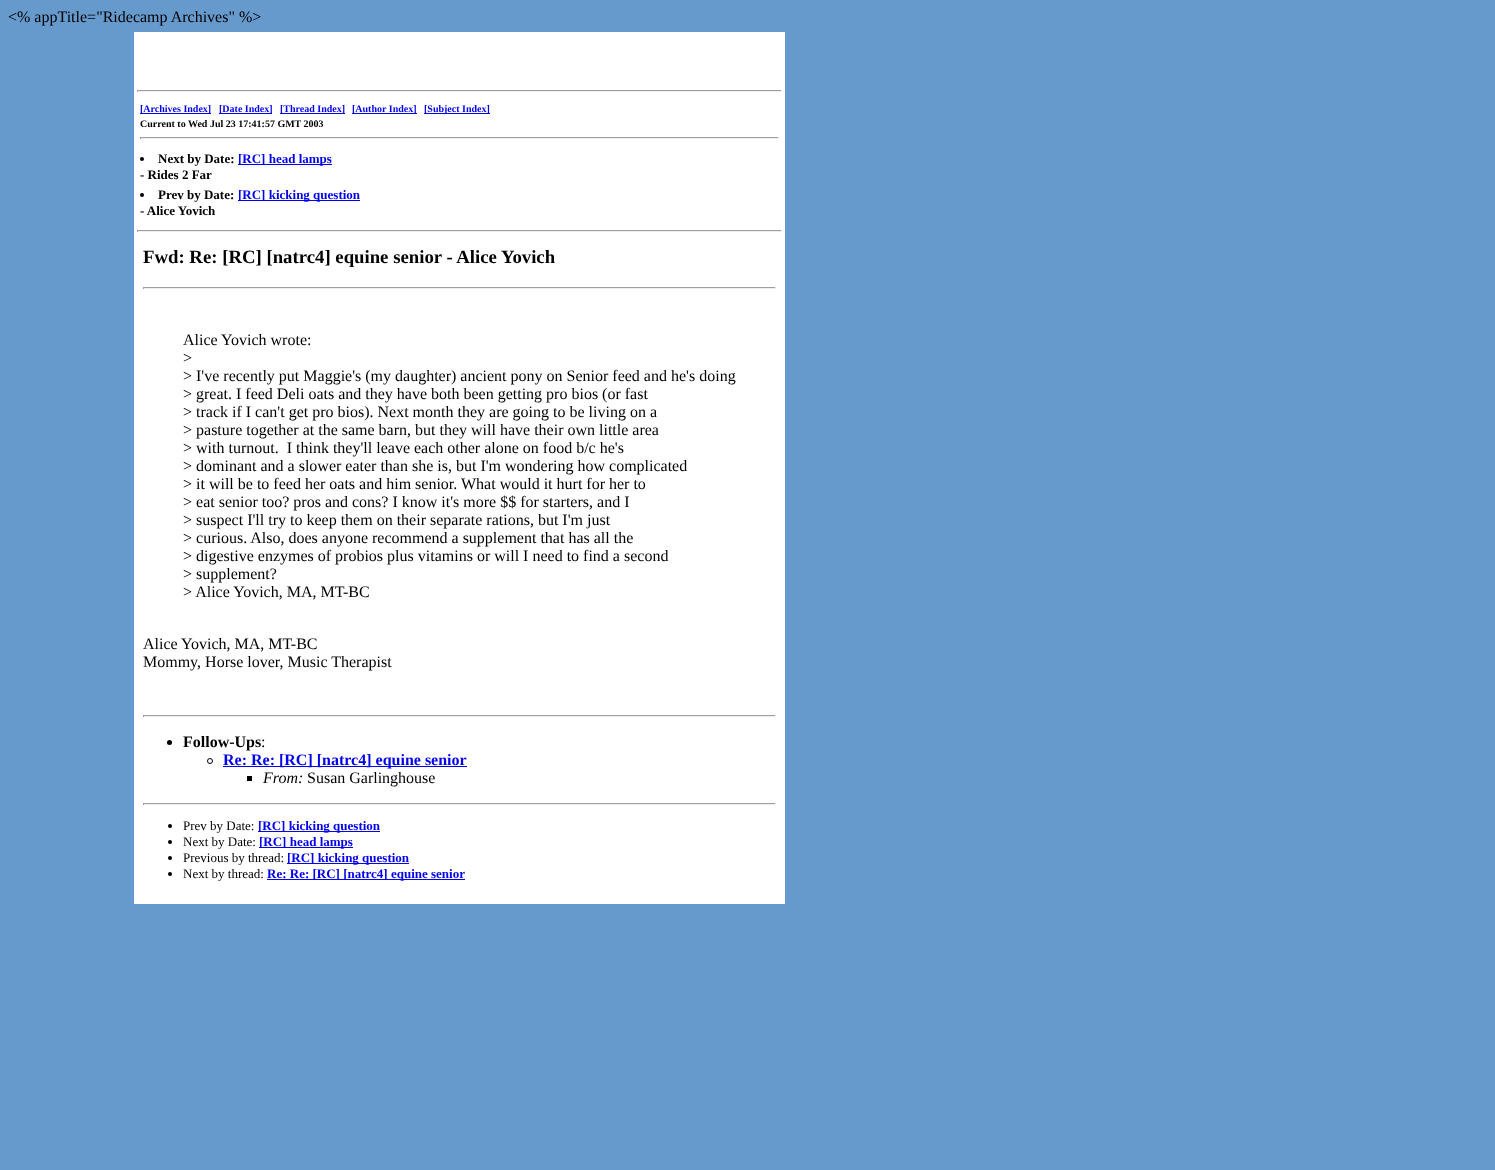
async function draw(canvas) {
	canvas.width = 1495;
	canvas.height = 1170;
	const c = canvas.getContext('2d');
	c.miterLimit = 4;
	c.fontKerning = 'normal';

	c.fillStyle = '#69c';
	c.fillRect(0, 0, 1495, 1170);
	c.font = '16px Liberation Serif';
	c.fillStyle = '#000';
	c.fillText('<% appTitle="Ridecamp Archives" %>', 8, 22);
	for (const [x, y, w, h, color] of [
		[134, 32, 651, 872, '#fff'],
		[137, 90, 645, 1, '#9f9f9f'],
		[781, 90, 1, 2, '#eee'],
		[137, 91, 645, 1, '#eee'],
		[137, 90, 1, 2, '#9f9f9f'],
		[140, 113, 71, 1, '#00e'],
	]) {
		c.fillStyle = color;
		c.fillRect(x, y, w, h);
	}
	c.font = 'bold 10px Liberation Serif';
	c.fillText('[Archives Index]', 140, 112);
	c.fillRect(219, 113, 53, 1);
	c.fillText('[Date Index]', 219, 112);
	c.fillRect(280, 113, 65, 1);
	c.fillText('[Thread Index]', 280, 112);
	c.fillRect(352, 113, 65, 1);
	c.fillText('[Author Index]', 352, 112);
	c.fillRect(424, 113, 66, 1);
	c.fillText('[Subject Index]', 424, 112);
	c.fillStyle = '#000';
	c.fillText('Current to Wed Jul 23 17:41:57 GMT 2003', 140, 127);
	for (const [x, y, w, h, color] of [
		[140, 137, 639, 1, '#9f9f9f'],
		[778, 137, 1, 2, '#eee'],
		[140, 138, 639, 1, '#eee'],
		[140, 137, 1, 2, '#9f9f9f'],
	]) {
		c.fillStyle = color;
		c.fillRect(x, y, w, h);
	}
	c.fillStyle = '#000';
	c.beginPath();
	c.arc(142, 159, 2, 0, 2 * Math.PI);
	c.fill();
	c.font = 'bold 13px Liberation Serif';
	c.fillText('Next by Date:', 158, 163);
	c.fillStyle = '#00e';
	c.fillRect(238, 164, 94, 1);
	c.fillText('[RC] head lamps', 238, 163);
	c.fillStyle = '#000';
	c.fillText('- Rides 2 Far', 140, 179);
	c.beginPath();
	c.arc(142, 195, 2, 0, 2 * Math.PI);
	c.fill();
	c.fillText('Prev by Date:', 158, 199);
	c.fillStyle = '#00e';
	c.fillRect(238, 200, 122, 1);
	c.fillText('[RC] kicking question', 238, 199);
	c.fillStyle = '#000';
	c.fillText('- Alice Yovich', 140, 215);
	for (const [x, y, w, h, color] of [
		[137, 230, 645, 1, '#9f9f9f'],
		[781, 230, 1, 2, '#eee'],
		[137, 231, 645, 1, '#eee'],
		[137, 230, 1, 2, '#9f9f9f'],
	]) {
		c.fillStyle = color;
		c.fillRect(x, y, w, h);
	}
	c.font = 'bold 18.75px Liberation Serif';
	c.fillStyle = '#000';
	c.fillText('Fwd: Re: [RC] [natrc4] equine senior - Alice Yovich', 143, 263);
	for (const [x, y, w, h, color] of [
		[143, 287, 633, 1, '#9f9f9f'],
		[775, 287, 1, 2, '#eee'],
		[143, 288, 633, 1, '#eee'],
		[143, 287, 1, 2, '#9f9f9f'],
	]) {
		c.fillStyle = color;
		c.fillRect(x, y, w, h);
	}
	c.font = '16px Liberation Serif';
	c.fillStyle = '#000';
	for (const [text, x, y] of [
		['Alice Yovich wrote:', 183, 345],
		['>', 183, 363],
		['> I\'ve recently put Maggie\'s (my daughter) ancient pony on Senior feed and he\'s doing', 183, 381],
		['> great. I feed Deli oats and they have both been getting pro bios (or fast', 183, 399],
		['> track if I can\'t get pro bios). Next month they are going to be living on a', 183, 417],
		['> pasture together at the same barn, but they will have their own little area', 183, 435],
		['> with turnout.  I think they\'ll leave each other alone on food b/c he\'s', 183, 453],
		['> dominant and a slower eater than she is, but I\'m wondering how complicated', 183, 471],
		['> it will be to feed her oats and him senior. What would it hurt for her to', 183, 489],
		['> eat senior too? pros and cons? I know it\'s more $$ for starters, and I', 183, 507],
		['> suspect I\'ll try to keep them on their separate rations, but I\'m just', 183, 525],
		['> curious. Also, does anyone recommend a supplement that has all the', 183, 543],
		['> digestive enzymes of probios plus vitamins or will I need to find a second', 183, 561],
		['> supplement?', 183, 579],
		['> Alice Yovich, MA, MT-BC', 183, 597],
		['Alice Yovich, MA, MT-BC', 143, 649],
		['Mommy, Horse lover, Music Therapist', 143, 667],
	]) {
		c.fillText(text, x, y);
	}
	for (const [x, y, w, h, color] of [
		[143, 715, 633, 1, '#9f9f9f'],
		[775, 715, 1, 2, '#eee'],
		[143, 716, 633, 1, '#eee'],
		[143, 715, 1, 2, '#9f9f9f'],
	]) {
		c.fillStyle = color;
		c.fillRect(x, y, w, h);
	}
	c.fillStyle = '#000';
	c.beginPath();
	c.arc(169.5, 742.5, 2.5, 0, 2 * Math.PI);
	c.fill();
	c.font = 'bold 16px Liberation Serif';
	c.fillText('Follow-Ups', 183, 747);
	c.font = '16px Liberation Serif';
	c.fillText(':', 261, 747);
	c.beginPath();
	c.arc(210, 761, 2.5, 0, 2 * Math.PI);
	c.strokeStyle = '#000';
	c.stroke();
	c.fillStyle = '#00e';
	c.fillRect(223, 766, 244, 1);
	c.font = 'bold 16px Liberation Serif';
	c.fillText('Re: Re: [RC] [natrc4] equine senior', 223, 765);
	c.fillStyle = '#000';
	c.fillRect(247, 776, 5, 5);
	c.font = 'italic 16px Liberation Serif';
	c.fillText('From:', 263, 783);
	c.font = '16px Liberation Serif';
	c.fillText('Susan Garlinghouse', 307, 783);
	for (const [x, y, w, h, color] of [
		[143, 803, 633, 1, '#9f9f9f'],
		[775, 803, 1, 2, '#eee'],
		[143, 804, 633, 1, '#eee'],
		[143, 803, 1, 2, '#9f9f9f'],
	]) {
		c.fillStyle = color;
		c.fillRect(x, y, w, h);
	}
	c.fillStyle = '#000';
	c.beginPath();
	c.arc(170, 826, 2, 0, 2 * Math.PI);
	c.fill();
	c.font = '13px Liberation Serif';
	c.fillText('Prev by Date:', 183, 830);
	c.fillStyle = '#00e';
	c.fillRect(258, 831, 122, 1);
	c.font = 'bold 13px Liberation Serif';
	c.fillText('[RC] kicking question', 258, 830);
	c.fillStyle = '#000';
	c.beginPath();
	c.arc(170, 842, 2, 0, 2 * Math.PI);
	c.fill();
	c.font = '13px Liberation Serif';
	c.fillText('Next by Date:', 183, 846);
	c.fillStyle = '#00e';
	c.fillRect(259, 847, 94, 1);
	c.font = 'bold 13px Liberation Serif';
	c.fillText('[RC] head lamps', 259, 846);
	c.fillStyle = '#000';
	c.beginPath();
	c.arc(170, 858, 2, 0, 2 * Math.PI);
	c.fill();
	c.font = '13px Liberation Serif';
	c.fillText('Previous by thread:', 183, 862);
	c.fillStyle = '#00e';
	c.fillRect(287, 863, 122, 1);
	c.font = 'bold 13px Liberation Serif';
	c.fillText('[RC] kicking question', 287, 862);
	c.fillStyle = '#000';
	c.beginPath();
	c.arc(170, 874, 2, 0, 2 * Math.PI);
	c.fill();
	c.font = '13px Liberation Serif';
	c.fillText('Next by thread:', 183, 878);
	c.fillStyle = '#00e';
	c.fillRect(267, 879, 198, 1);
	c.font = 'bold 13px Liberation Serif';
	c.fillText('Re: Re: [RC] [natrc4] equine senior', 267, 878);
}

draw(document.querySelector('canvas'));
